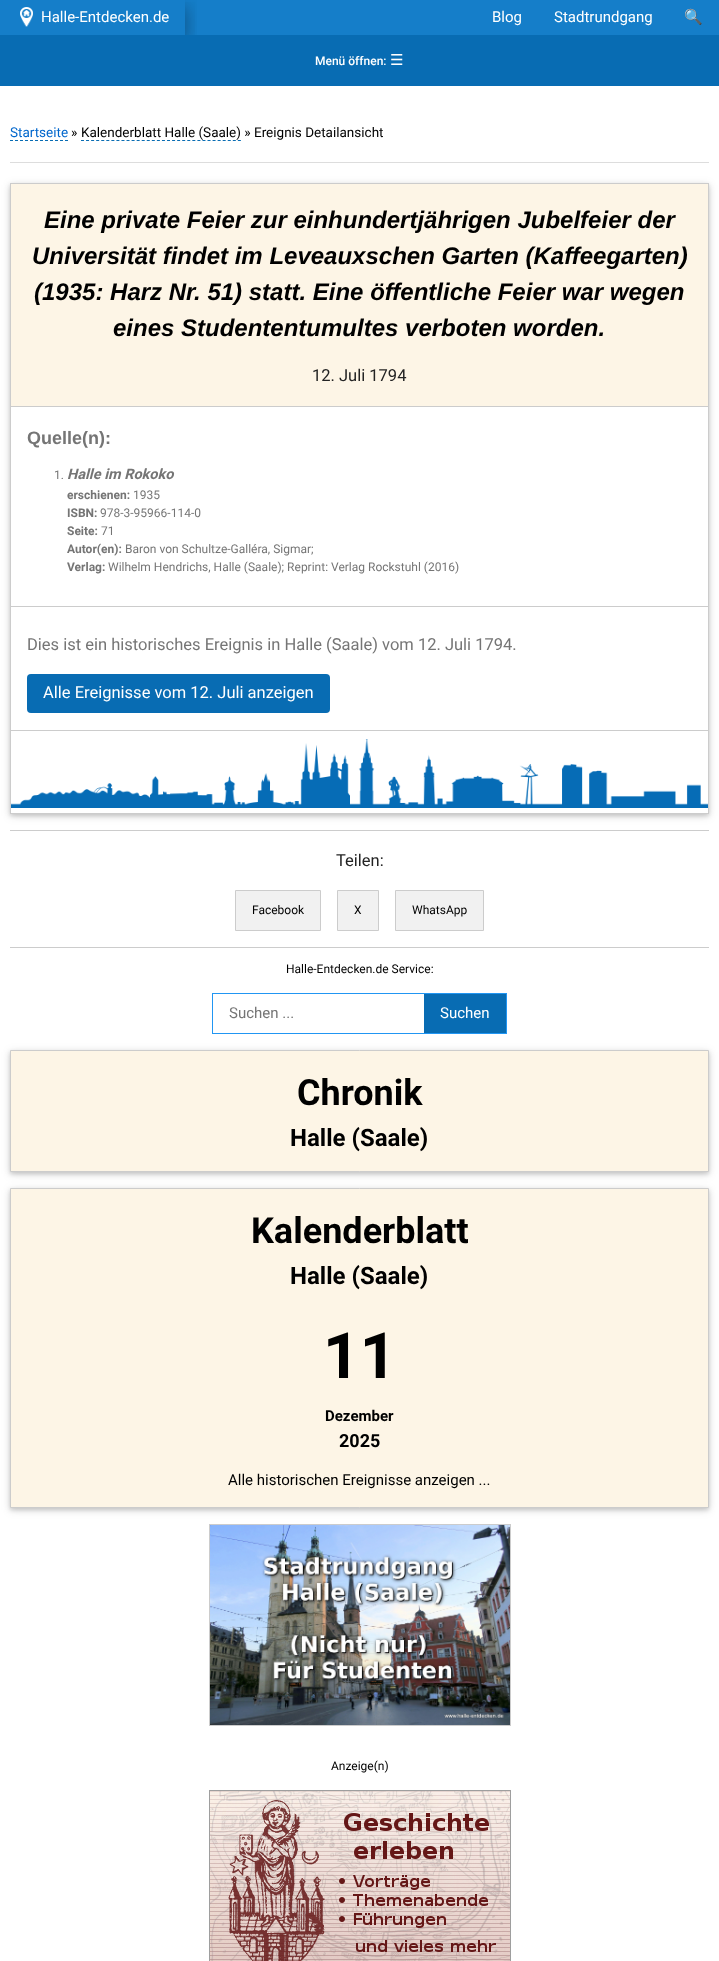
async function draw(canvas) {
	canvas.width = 719;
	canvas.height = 1961;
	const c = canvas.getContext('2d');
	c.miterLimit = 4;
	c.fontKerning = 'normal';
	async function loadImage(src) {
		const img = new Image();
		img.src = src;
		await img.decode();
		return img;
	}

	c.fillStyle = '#fff';
	c.fillRect(0, 0, 719, 1961);
	c.fillStyle = '#157ec9';
	c.fillRect(0, 0, 719, 35);
	c.save();
	c.beginPath();
	c.rect(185, 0, 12, 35);
	c.clip();
	c.fillStyle = '#00000030';
	c.filter = 'blur(10px)';
	c.beginPath();
	c.rect(0, 6, 185, 35);
	c.fill();
	c.filter = 'none';
	c.restore();
	c.save();
	c.beginPath();
	c.rect(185, 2, 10, 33);
	c.clip();
	c.fillStyle = '#00000033';
	c.filter = 'blur(8px)';
	c.beginPath();
	c.rect(0, 8, 185, 35);
	c.fill();
	c.filter = 'none';
	c.restore();
	c.drawImage(await loadImage('img1.png'), 20, 7, 13, 20);
	c.font = '15px Roboto';
	c.fillStyle = '#fff';
	for (const [text, x, y] of [
		['Halle-Entdecken.de', 41, 22],
		['Blog', 492, 22],
		['Stadtrundgang', 554, 22],
	]) {
		c.fillText(text, x, y);
	}
	c.font = '15px Noto Color Emoji';
	c.fillText('🔍', 684, 22);
	c.fillStyle = '#086cb3';
	c.fillRect(0, 35, 719, 51);
	c.font = '500 12px Roboto';
	c.fillStyle = '#fff';
	c.fillText('Menü öffnen:', 315, 65);
	c.font = '15px DejaVu Sans';
	c.fillText('☰', 390, 65);
	c.fillStyle = '#ddd';
	c.fillRect(10, 162, 699, 1);
	c.font = '13.5px Roboto';
	c.fillStyle = '#06c';
	c.fillText('Startseite', 10, 137);
	c.beginPath();
	c.moveTo(10, 140.5);
	c.lineTo(68, 140.5);
	c.strokeStyle = '#086cb3';
	c.setLineDash([3, 2]);
	c.stroke();
	c.fillStyle = '#000';
	c.fillText('»', 71, 137);
	c.beginPath();
	c.moveTo(81, 140.5);
	c.lineTo(241, 140.5);
	c.setLineDash([3, 2.06]);
	c.stroke();
	c.fillText('Kalenderblatt Halle (Saale) » Ereignis Detailansicht', 81, 137);
	c.save();
	c.beginPath();
	c.moveTo(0, 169);
	c.lineTo(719, 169);
	c.lineTo(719, 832);
	c.lineTo(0, 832);
	c.closePath();
	c.moveTo(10, 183);
	c.lineTo(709, 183);
	c.lineTo(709, 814);
	c.lineTo(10, 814);
	c.closePath();
	c.clip('evenodd');
	c.fillStyle = '#0000001f';
	c.filter = 'blur(5px)';
	c.beginPath();
	c.rect(10, 185, 699, 631);
	c.fill();
	c.filter = 'none';
	c.restore();
	c.save();
	c.beginPath();
	c.moveTo(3, 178);
	c.lineTo(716, 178);
	c.lineTo(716, 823);
	c.lineTo(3, 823);
	c.closePath();
	c.moveTo(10, 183);
	c.lineTo(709, 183);
	c.lineTo(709, 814);
	c.lineTo(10, 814);
	c.closePath();
	c.clip('evenodd');
	c.fillStyle = '#00000029';
	c.filter = 'blur(2px)';
	c.beginPath();
	c.rect(10, 185, 699, 631);
	c.fill();
	c.filter = 'none';
	c.restore();
	c.strokeStyle = '#ccc';
	c.setLineDash([]);
	c.strokeRect(10.5, 183.5, 698, 630);
	c.fillStyle = '#fdf5e6';
	c.fillRect(11, 184, 697, 222);
	c.fillStyle = '#ccc';
	c.fillRect(11, 406, 697, 1);
	c.font = 'italic bold 24px Liberation Sans';
	c.fillStyle = '#000';
	for (const [text, x, y] of [
		['Eine private Feier zur einhundertjährigen Jubelfeier der', 44, 228],
		['Universität findet im Leveauxschen Garten (Kaffeegarten)', 32, 264],
		['(1935: Harz Nr. 51) statt. Eine öffentliche Feier war wegen', 34, 300],
		['eines Studententumultes verboten worden.', 113, 336],
	]) {
		c.fillText(text, x, y);
	}
	c.font = '16.5px Roboto';
	c.fillStyle = '#232323';
	c.fillText('12. Juli 1794', 312, 381);
	c.fillStyle = '#ccc';
	c.fillRect(11, 606, 697, 1);
	c.font = 'bold 18px Liberation Sans';
	c.fillStyle = '#757575';
	c.fillText('Quelle(n):', 27, 444);
	c.font = '12px Roboto';
	c.fillText('1.', 54, 479);
	c.font = 'italic bold 14.5px Roboto';
	c.fillText('Halle im Rokoko', 67, 479);
	c.font = 'bold 12px Roboto';
	c.fillText('erschienen:', 67, 499);
	c.font = '12px Roboto';
	c.fillText('1935', 133, 499);
	c.font = 'bold 12px Roboto';
	c.fillText('ISBN:', 67, 517);
	c.font = '12px Roboto';
	c.fillText('978-3-95966-114-0', 100, 517);
	c.font = 'bold 12px Roboto';
	c.fillText('Seite:', 67, 535);
	c.font = '12px Roboto';
	c.fillText('71', 101, 535);
	c.font = 'bold 12px Roboto';
	c.fillText('Autor(en):', 67, 553);
	c.font = '12px Roboto';
	c.fillText('Baron von Schultze-Galléra, Sigmar;', 125, 553);
	c.font = 'bold 12px Roboto';
	c.fillText('Verlag:', 67, 571);
	c.font = '12px Roboto';
	c.fillText('Wilhelm Hendrichs, Halle (Saale); Reprint: Verlag Rockstuhl (2016)', 108, 571);
	c.fillStyle = '#ccc';
	c.fillRect(11, 730, 697, 1);
	c.font = '16.5px Roboto';
	c.fillStyle = '#757575';
	c.fillText('Dies ist ein historisches Ereignis in Halle (Saale) vom 12. Juli 1794.', 27, 650);
	c.fillStyle = '#086cb3';
	c.beginPath();
	c.roundRect(27, 674, 303, 39, 4);
	c.fill();
	c.fillStyle = '#fff';
	c.fillText('Alle Ereignisse vom 12. Juli anzeigen', 43, 698);
	c.drawImage(await loadImage('img2.png'), 11, 739, 697, 69);
	c.fillStyle = '#ccc';
	c.fillRect(10, 830, 699, 1);
	c.fillRect(10, 947, 699, 1);
	c.fillStyle = '#232323';
	c.fillText('Teilen:', 336, 866);
	c.fillStyle = '#f1f1f1';
	c.beginPath();
	c.rect(235.5, 890.5, 85, 40);
	c.fill();
	c.stroke();
	c.font = '12px Roboto';
	c.fillStyle = '#000';
	c.fillText('Facebook', 252, 914);
	c.fillStyle = '#f1f1f1';
	c.beginPath();
	c.rect(337.5, 890.5, 41, 40);
	c.fill();
	c.stroke();
	c.fillStyle = '#000';
	c.fillText('X', 354, 914);
	c.fillStyle = '#f1f1f1';
	c.beginPath();
	c.rect(395.5, 890.5, 88, 40);
	c.fill();
	c.stroke();
	c.fillStyle = '#000';
	c.fillText('WhatsApp', 412, 914);
	c.fillText('Halle-Entdecken.de Service:', 286, 973);
	for (const [x, y, w, h, color] of [
		[212, 993, 295, 1, '#2196f3'],
		[212, 1033, 212, 1, '#2196f3'],
		[212, 993, 1, 41, '#2196f3'],
	]) {
		c.fillStyle = color;
		c.fillRect(x, y, w, h);
	}
	c.font = '15px Roboto';
	c.fillStyle = '#757575';
	c.fillText('Suchen ...', 229, 1018);
	for (const [x, y, w, h, color] of [
		[424, 994, 82, 39, '#086cb3'],
		[506, 993, 1, 41, '#2196f3'],
		[424, 1033, 83, 1, '#2196f3'],
	]) {
		c.fillStyle = color;
		c.fillRect(x, y, w, h);
	}
	c.fillStyle = '#fff';
	c.fillText('Suchen', 440, 1018);
	c.fillStyle = '#0000001f';
	c.filter = 'blur(5px)';
	c.beginPath();
	c.rect(10, 1052, 699, 122);
	c.fill();
	c.filter = 'none';
	c.fillStyle = '#00000029';
	c.filter = 'blur(2px)';
	c.beginPath();
	c.rect(10, 1052, 699, 122);
	c.fill();
	c.filter = 'none';
	c.fillStyle = '#fdf5e6';
	c.beginPath();
	c.rect(10.5, 1050.5, 698, 121);
	c.fill();
	c.stroke();
	c.font = 'bold 36px Roboto';
	c.fillStyle = '#000';
	c.fillText('Chronik', 297, 1105);
	c.font = 'bold 24px Roboto';
	c.fillText('Halle (Saale)', 290, 1146);
	c.fillStyle = '#0000001f';
	c.filter = 'blur(5px)';
	c.beginPath();
	c.rect(10, 1190, 699, 320);
	c.fill();
	c.filter = 'none';
	c.fillStyle = '#00000029';
	c.filter = 'blur(2px)';
	c.beginPath();
	c.rect(10, 1190, 699, 320);
	c.fill();
	c.filter = 'none';
	c.fillStyle = '#fdf5e6';
	c.beginPath();
	c.rect(10.5, 1188.5, 698, 319);
	c.fill();
	c.stroke();
	c.font = 'bold 36px Roboto';
	c.fillStyle = '#000';
	c.fillText('Kalenderblatt', 251, 1243);
	c.font = 'bold 24px Roboto';
	c.fillText('Halle (Saale)', 290, 1284);
	c.font = 'bold 64px Roboto';
	c.fillText('11', 323, 1378);
	c.font = 'bold 15px Roboto';
	c.fillText('Dezember', 325, 1421);
	c.font = 'bold 18px Roboto';
	c.fillText('2025', 339, 1447);
	c.font = '15px Roboto';
	c.fillText('Alle historischen Ereignisse anzeigen ...', 228, 1485);
	c.strokeRect(209.5, 1524.5, 301, 201);
	c.drawImage(await loadImage('img3.png'), 210, 1525, 300, 200);
	c.font = '12px Roboto';
	c.fillText('Anzeige(n)', 331, 1770);
	c.strokeStyle = '#9e9e9e';
	c.strokeRect(209.5, 1790.5, 301, 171);
	c.drawImage(await loadImage('img4.png'), 210, 1791, 300, 170);
}

draw(document.querySelector('canvas'));
